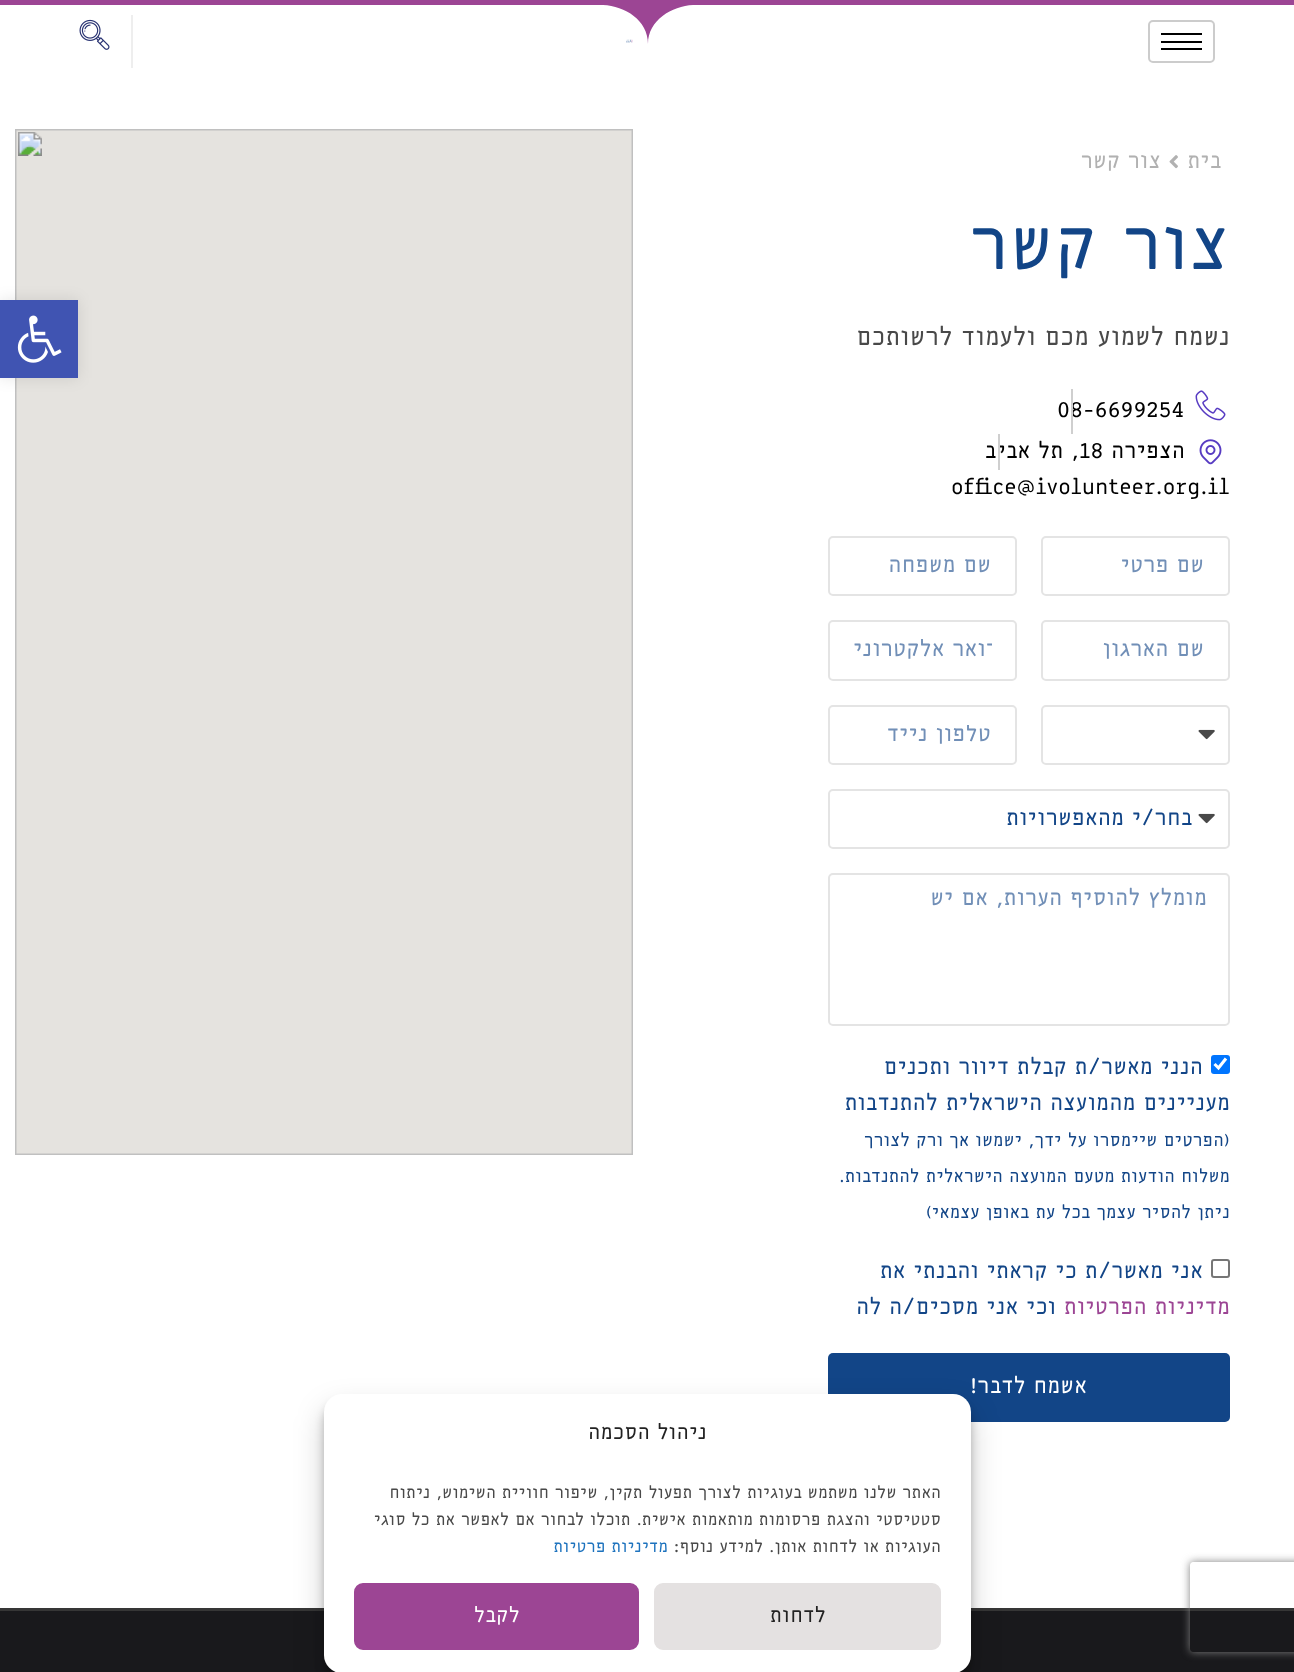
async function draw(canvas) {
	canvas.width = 1294;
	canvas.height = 1672;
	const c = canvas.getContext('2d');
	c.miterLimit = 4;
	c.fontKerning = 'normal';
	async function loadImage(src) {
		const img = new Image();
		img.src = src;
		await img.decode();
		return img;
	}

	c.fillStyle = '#fff';
	c.fillRect(0, 0, 1294, 1672);
	c.fillStyle = '#9c4594';
	c.beginPath();
	c.moveTo(-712, -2);
	c.lineTo(-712, 5);
	c.lineTo(603, 5);
	c.bezierCurveTo(625, 6, 648, 20, 648, 44);
	c.bezierCurveTo(648, 20, 672, 6, 693, 5);
	c.lineTo(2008, 5);
	c.lineTo(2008, -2);
	c.closePath();
	c.fill();
	c.beginPath();
	c.roundRect(1149, 21, 65, 41, 4);
	c.strokeStyle = '#ccc';
	c.lineWidth = 2;
	c.stroke();
	for (const [x, y, w, h, color] of [
		[1161, 33, 41, 2, '#000'],
		[1161, 41, 41, 2, '#000'],
		[1161, 48, 41, 2, '#000'],
	]) {
		c.fillStyle = color;
		c.fillRect(x, y, w, h);
	}
	c.drawImage(await loadImage('img1.png'), 626, 39, 7, 4);
	c.fillStyle = '#eee';
	c.fillRect(131, 15, 2, 53);
	c.drawImage(await loadImage('img2.png'), 79, 19, 31, 31);
	c.direction = 'rtl';
	c.font = '24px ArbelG';
	c.fillStyle = '#b1b1b1';
	c.fillText('בית', 1222, 168);
	c.drawImage(await loadImage('img3.png'), 1169, 155, 9, 14);
	c.fillText('צור קשר', 1161, 168);
	c.font = '78px ArbelG';
	c.fillStyle = '#124587';
	c.fillText('צור קשר', 1230, 269);
	c.font = '27px ArbelG';
	c.fillStyle = '#494949';
	c.fillText('נשמח לשמוע מכם ולעמוד לרשותכם', 1230, 345);
	c.drawImage(await loadImage('img4.png'), 1195, 390, 31, 31);
	c.direction = 'ltr';
	c.font = '24px ArbelG';
	c.fillStyle = '#000';
	c.fillText('08-6699254', 1057, 417);
	c.fillStyle = '#cfcfcf';
	c.fillRect(1071, 389, 2, 45);
	c.drawImage(await loadImage('img5.png'), 1199, 439, 23, 26);
	c.direction = 'rtl';
	c.fillStyle = '#000';
	c.fillText(', תל אביב', 1079, 458);
	c.fillStyle = '#cfcfcf';
	c.fillRect(998, 434, 2, 36);
	c.fillStyle = '#000';
	c.fillText('הצפירה', 1185, 458);
	c.direction = 'ltr';
	c.fillText('18', 1079, 458);
	c.fillText('office@ivolunteer.org.il', 951, 494);
	c.beginPath();
	c.roundRect(1042, 537, 187, 58, 4);
	c.strokeStyle = '#e4e4e4';
	c.stroke();
	c.direction = 'rtl';
	c.fillStyle = '#718fb7';
	c.fillText('שם פרטי', 1204, 572);
	c.beginPath();
	c.roundRect(829, 537, 187, 58, 4);
	c.stroke();
	c.fillText('שם משפחה', 991, 572);
	c.beginPath();
	c.roundRect(1042, 621, 187, 59, 4);
	c.stroke();
	c.fillText('שם הארגון', 1204, 656);
	c.beginPath();
	c.roundRect(829, 621, 187, 59, 4);
	c.stroke();
	c.save();
	c.beginPath();
	c.rect(854, 639, 138, 21);
	c.clip();
	c.fillText('דואר אלקטרוני', 998, 656);
	c.restore();
	c.beginPath();
	c.roundRect(1042, 706, 187, 58, 4);
	c.stroke();
	c.drawImage(await loadImage('img6.png'), 1198, 729, 17, 11);
	c.beginPath();
	c.roundRect(829, 706, 187, 58, 4);
	c.stroke();
	c.save();
	c.beginPath();
	c.rect(854, 725, 138, 21);
	c.clip();
	c.fillText('טלפון נייד', 991, 741);
	c.restore();
	c.beginPath();
	c.roundRect(829, 790, 400, 58, 4);
	c.stroke();
	c.drawImage(await loadImage('img6.png'), 1198, 813, 17, 11);
	c.fillStyle = '#124587';
	c.fillText('בחר/י מהאפשרויות', 1193, 825);
	c.beginPath();
	c.roundRect(829, 874, 400, 151, 4);
	c.stroke();
	c.fillStyle = '#718fb7';
	c.fillText('מומלץ להוסיף הערות, אם יש', 1207, 905);
	c.fillStyle = '#0075ff';
	c.beginPath();
	c.roundRect(1211, 1055, 19, 19, 3);
	c.fill();
	c.beginPath();
	c.moveTo(1214.5, 1064);
	c.lineTo(1218.5, 1068);
	c.lineTo(1226, 1058.5);
	c.strokeStyle = '#fff';
	c.lineWidth = 3.1;
	c.stroke();
	c.fillStyle = '#124587';
	c.fillText('הנני מאשר/ת קבלת דיוור ותכנים', 1203, 1074);
	c.fillText('מעניינים מהמועצה הישראלית להתנדבות', 1230, 1110);
	c.font = '19.2px ArbelG';
	for (const [text, x, y] of [
		['(הפרטים שיימסרו על ידך, ישמשו אך ורק לצורך', 1230, 1146],
		['משלוח הודעות מטעם המועצה הישראלית להתנדבות.', 1230, 1182],
		['ניתן להסיר עצמך בכל עת באופן עצמאי)', 1230, 1218],
	]) {
		c.fillText(text, x, y);
	}
	c.beginPath();
	c.roundRect(1212, 1260, 17, 17, 2);
	c.strokeStyle = '#767676';
	c.lineWidth = 2;
	c.stroke();
	c.font = '24px ArbelG';
	c.fillText('אני מאשר/ת כי קראתי והבנתי את', 1203, 1278);
	c.fillStyle = '#9c4594';
	c.fillText('מדיניות הפרטיות', 1230, 1314);
	c.fillStyle = '#124587';
	c.fillText('וכי אני מסכים/ה לה', 1056, 1314);
	c.beginPath();
	c.roundRect(828, 1353, 402, 69, 5);
	c.fill();
	c.fillStyle = '#fff';
	c.fillText('אשמח לדבר!', 1087, 1393);
	c.fillStyle = '#19191c';
	c.fillRect(0, 1611, 1294, 61);
	c.fillStyle = '#363636';
	c.fillRect(0, 1608, 1294, 3);
	c.save();
	c.beginPath();
	c.moveTo(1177, 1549);
	c.lineTo(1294, 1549);
	c.lineTo(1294, 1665);
	c.lineTo(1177, 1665);
	c.closePath();
	c.moveTo(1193, 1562);
	c.lineTo(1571, 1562);
	c.bezierCurveTo(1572.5, 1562, 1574, 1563.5, 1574, 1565);
	c.lineTo(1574, 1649);
	c.bezierCurveTo(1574, 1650.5, 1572.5, 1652, 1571, 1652);
	c.lineTo(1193, 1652);
	c.bezierCurveTo(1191.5, 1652, 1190, 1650.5, 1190, 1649);
	c.lineTo(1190, 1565);
	c.bezierCurveTo(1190, 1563.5, 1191.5, 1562, 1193, 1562);
	c.closePath();
	c.clip('evenodd');
	c.fillStyle = '#808080';
	c.filter = 'blur(4px)';
	c.beginPath();
	c.roundRect(1190, 1562, 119, 90, 3);
	c.fill();
	c.filter = 'none';
	c.restore();
	c.drawImage(await loadImage('img7.png'), 15, 129, 618, 1026);
	c.fillStyle = '#0000001a';
	c.filter = 'blur(7.5px)';
	c.beginPath();
	c.rect(0, 300, 78, 78);
	c.fill();
	c.filter = 'none';
	c.fillStyle = '#4054b2';
	c.fillRect(0, 300, 78, 78);
	c.drawImage(await loadImage('img8.png'), 17, 315, 45, 48);
	c.fillStyle = '#0000003b';
	c.filter = 'blur(4.5px)';
	c.beginPath();
	c.roundRect(324, 1403, 647, 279, 18);
	c.fill();
	c.filter = 'none';
	c.fillStyle = '#00000030';
	c.filter = 'blur(15px)';
	c.beginPath();
	c.roundRect(324, 1409, 647, 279, 18);
	c.fill();
	c.filter = 'none';
	c.fillStyle = '#fff';
	c.beginPath();
	c.roundRect(324, 1394, 647, 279, 18);
	c.fill();
	c.font = '22.5px ArbelG';
	c.fillStyle = '#222';
	c.fillText('ניהול הסכמה', 707, 1439);
	c.font = '18px ArbelG';
	c.fillStyle = '#494949';
	for (const [text, x, y] of [
		['האתר שלנו משתמש בעוגיות לצורך תפעול תקין, שיפור חוויית השימוש, ניתוח', 941, 1498],
		['סטטיסטי והצגת פרסומות מותאמות אישית. תוכלו לבחור אם לאפשר את כל סוגי', 941, 1525],
		['העוגיות או לדחות אותן. למידע נוסף:', 941, 1552],
	]) {
		c.fillText(text, x, y);
	}
	c.fillStyle = '#1e73be';
	c.fillText('מדיניות פרטיות', 668, 1552);
	c.fillStyle = '#e4e1e1';
	c.beginPath();
	c.roundRect(655, 1584, 285, 65, 8);
	c.fill();
	c.strokeStyle = '#e4e1e1';
	c.stroke();
	c.font = '22.5px ArbelG';
	c.fillStyle = '#222';
	c.fillText('לדחות', 826, 1622);
	c.fillStyle = '#9c4594';
	c.beginPath();
	c.roundRect(355, 1584, 283, 65, 8);
	c.fill();
	c.strokeStyle = '#9c4594';
	c.stroke();
	c.fillStyle = '#fff';
	c.fillText('לקבל', 520, 1622);
}

draw(document.querySelector('canvas'));
